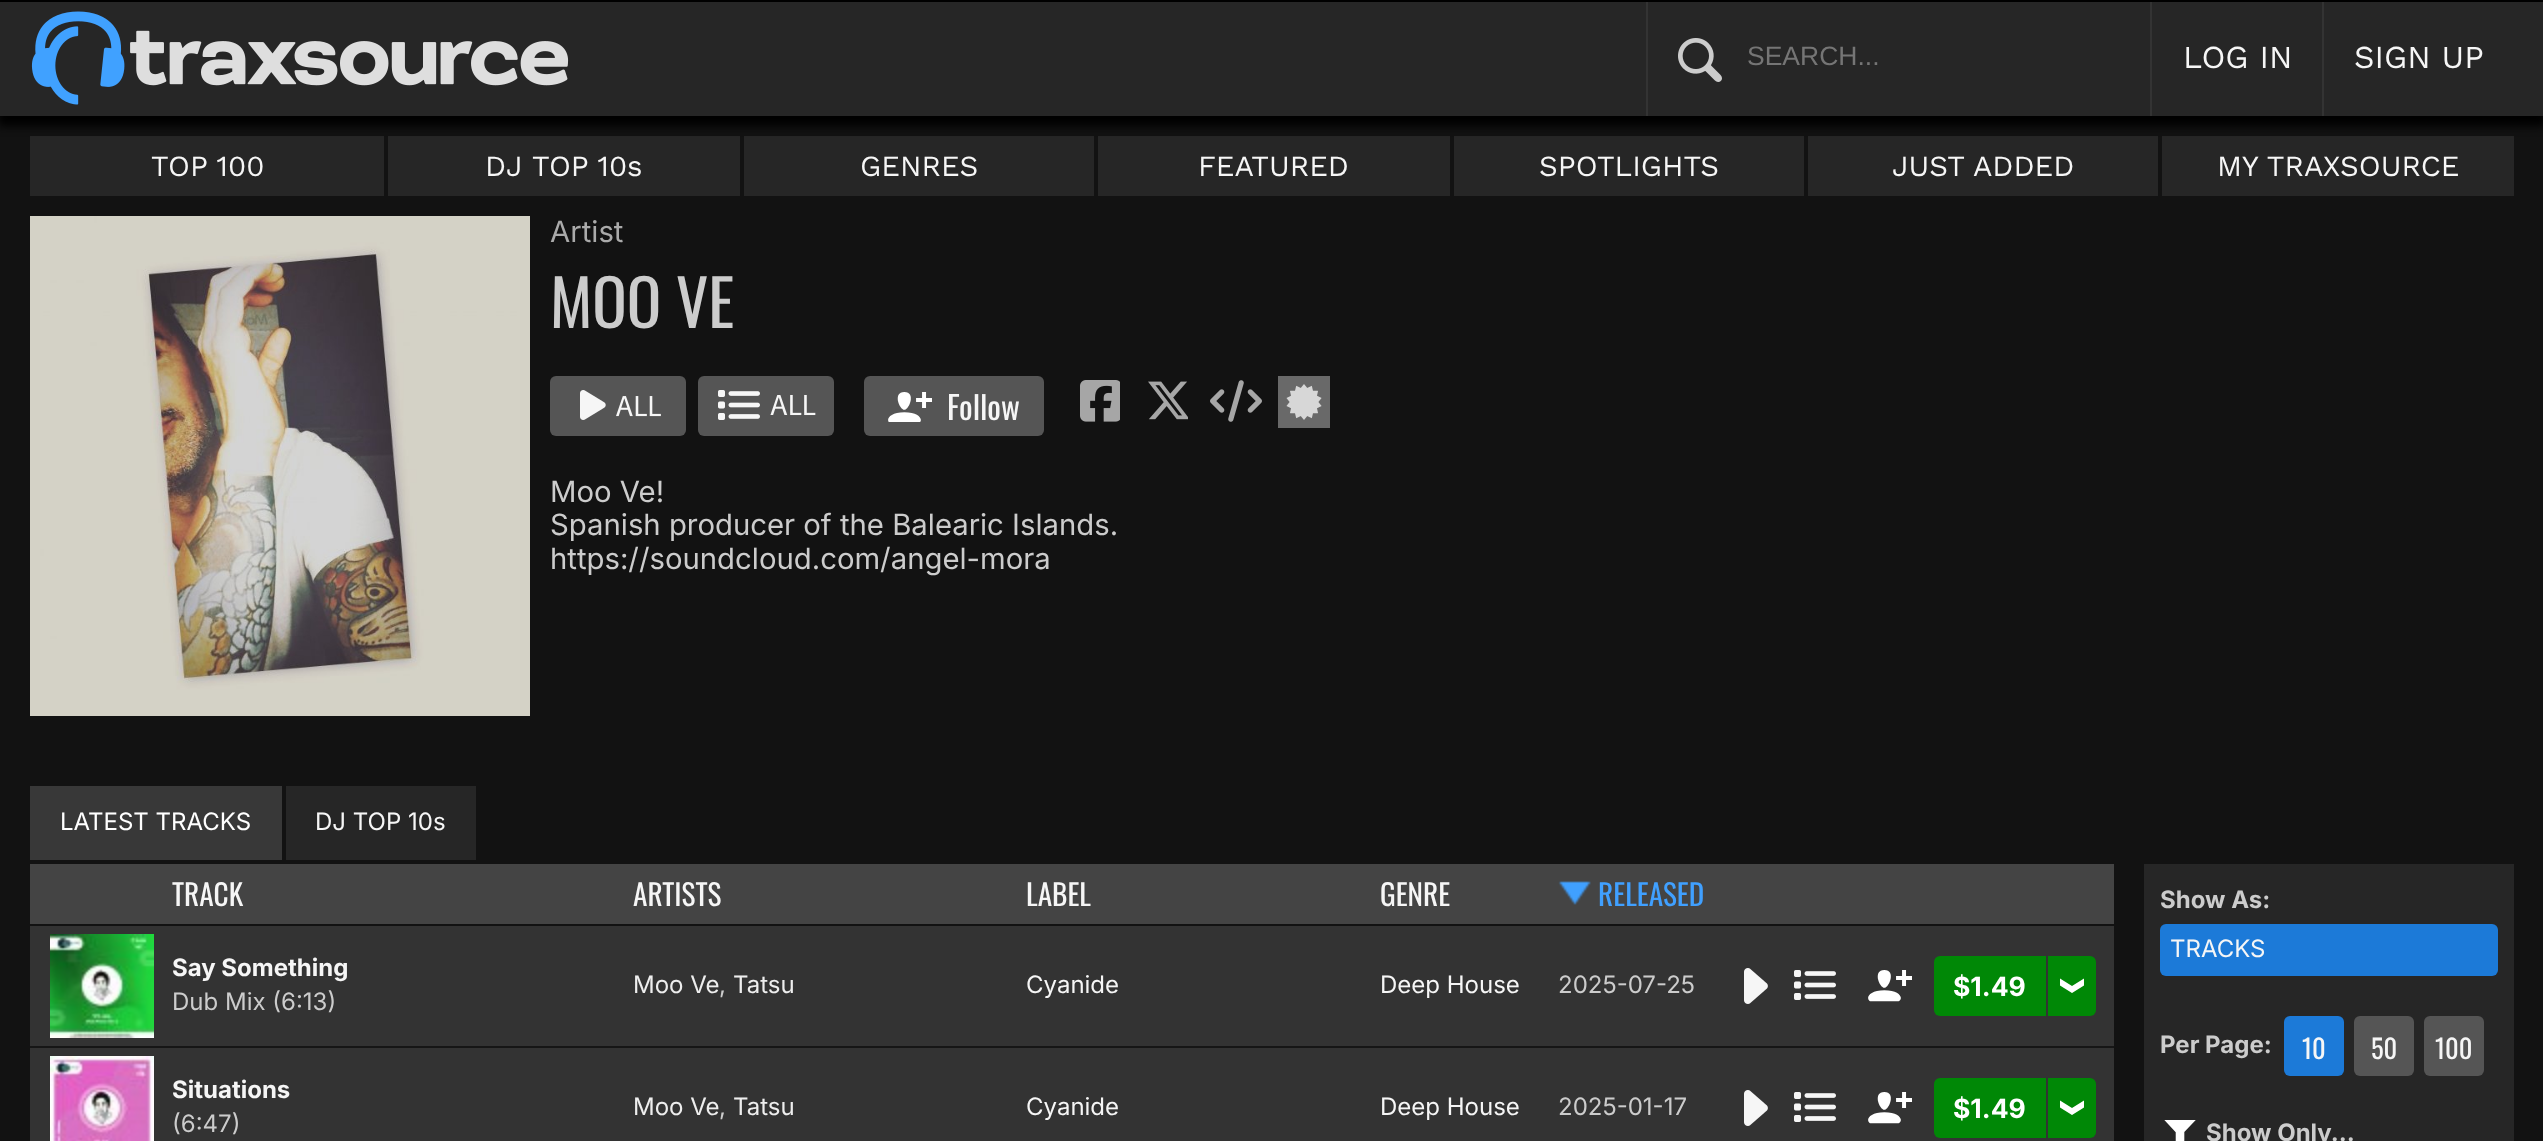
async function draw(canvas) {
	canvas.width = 2543;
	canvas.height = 1141;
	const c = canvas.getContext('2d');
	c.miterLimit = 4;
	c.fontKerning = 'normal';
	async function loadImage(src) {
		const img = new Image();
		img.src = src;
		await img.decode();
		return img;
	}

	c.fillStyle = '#121212';
	c.fillRect(0, 0, 2543, 1141);
	for (const [x, y, w, h, color] of [
		[30, 136, 354, 60, '#262626'],
		[388, 136, 352, 60, '#262626'],
		[744, 136, 350, 60, '#262626'],
		[1098, 136, 352, 60, '#262626'],
		[1454, 136, 350, 60, '#262626'],
		[1808, 136, 350, 60, '#262626'],
		[2162, 136, 352, 60, '#262626'],
	]) {
		c.fillStyle = color;
		c.fillRect(x, y, w, h);
	}
	c.fillStyle = '#000';
	c.filter = 'blur(5px)';
	c.beginPath();
	c.rect(-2, 6, 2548, 120);
	c.fill();
	c.filter = 'none';
	for (const [x, y, w, h, color] of [
		[0, 2, 2543, 114, '#262626'],
		[1646, 0, 2, 116, '#333'],
		[2150, 0, 2, 116, '#333'],
		[2322, 0, 2, 116, '#333'],
		[0, 0, 2543, 2, '#000'],
	]) {
		c.fillStyle = color;
		c.fillRect(x, y, w, h);
	}
	c.drawImage(await loadImage('img1.png'), 31, 11, 538, 94);
	c.drawImage(await loadImage('img2.png'), 1678, 38, 44, 44);
	c.font = '26.5px Liberation Sans';
	c.fillStyle = '#757575';
	c.fillText('SEARCH...', 1747, 65);
	c.font = '32px Work Sans';
	c.fillStyle = '#f6f6f6';
	c.fillText('LOG IN', 2183, 68);
	c.fillText('SIGN UP', 2354, 68);
	c.font = '29.3px Work Sans';
	for (const [text, x, y] of [
		['TOP 100', 151, 176],
		['DJ TOP 10s', 485, 176],
		['GENRES', 860, 176],
		['FEATURED', 1198, 176],
		['SPOTLIGHTS', 1539, 176],
		['JUST ADDED', 1892, 176],
		['MY TRAXSOURCE', 2217, 176],
	]) {
		c.fillText(text, x, y);
	}
	c.drawImage(await loadImage('img3.png'), 30, 216, 500, 500);
	c.font = '29.3px Inter';
	c.fillStyle = '#aaa';
	c.fillText('Artist', 550, 242);
	c.font = '64px Oswald';
	c.fillStyle = '#ccc';
	c.fillText('MOO VE', 550, 328);
	c.fillStyle = '#555';
	c.beginPath();
	c.roundRect(550, 376, 136, 60, 6);
	c.fill();
	c.drawImage(await loadImage('img4.png'), 580, 390, 81, 30);
	c.beginPath();
	c.roundRect(698, 376, 136, 60, 6);
	c.fill();
	c.drawImage(await loadImage('img5.png'), 718, 390, 98, 30);
	c.beginPath();
	c.roundRect(864, 376, 180, 60, 6);
	c.fill();
	c.drawImage(await loadImage('img6.png'), 888, 392, 44, 30);
	c.font = '32px Oswald';
	c.fillStyle = '#f6f6f6';
	c.fillText('Follow', 947, 420);
	c.drawImage(await loadImage('img7.png'), 1080, 380, 40, 42);
	c.drawImage(await loadImage('img8.png'), 1148, 381, 40, 39);
	c.drawImage(await loadImage('img9.png'), 1210, 380, 52, 42);
	c.fillStyle = '#696969';
	c.fillRect(1278, 376, 52, 52);
	c.drawImage(await loadImage('img10.png'), 1286, 384, 36, 36);
	c.font = '29.3px Inter';
	c.fillStyle = '#ccc';
	for (const [text, x, y] of [
		['Moo Ve!', 550, 502],
		['Spanish producer of the Balearic Islands.', 550, 535],
		['https://soundcloud.com/angel-mora', 550, 569],
	]) {
		c.fillText(text, x, y);
	}
	c.fillStyle = '#383838';
	c.fillRect(30, 786, 252, 74);
	c.font = '24px Inter';
	c.fillStyle = '#fff';
	c.fillText('LATEST TRACKS', 60, 830);
	c.fillStyle = '#262626';
	c.fillRect(286, 786, 190, 74);
	c.fillStyle = '#f6f6f6';
	c.fillText('DJ TOP 10s', 315, 830);
	c.fillStyle = '#444';
	c.fillRect(30, 864, 2084, 60);
	c.font = '29.3px Oswald';
	c.fillStyle = '#f6f6f6';
	for (const [text, x, y] of [
		['TRACK', 172, 906],
		['ARTISTS', 633, 906],
		['LABEL', 1026, 906],
		['GENRE', 1380, 906],
	]) {
		c.fillText(text, x, y);
	}
	c.drawImage(await loadImage('img11.png'), 1558, 881, 33, 24);
	c.fillStyle = '#40a0ff';
	c.fillText('RELEASED', 1598, 906);
	c.fillStyle = '#333';
	c.fillRect(30, 926, 2084, 120);
	c.fillStyle = '#161616';
	c.fillRect(30, 1046, 2084, 2);
	c.drawImage(await loadImage('img12.png'), 50, 934, 104, 104);
	c.font = 'bold 24px Inter';
	c.fillStyle = '#f6f6f6';
	c.fillText('Say Something', 172, 976);
	c.font = '24px Inter';
	c.fillStyle = '#ccc';
	c.fillText('Dub Mix (6:13)', 172, 1010);
	c.fillStyle = '#eee';
	c.fillText('Moo Ve', 633, 993);
	c.fillStyle = '#ccc';
	c.fillText(',', 719, 993);
	c.fillStyle = '#eee';
	c.fillText('Tatsu', 733, 993);
	c.fillStyle = '#f6f6f6';
	c.fillText('Cyanide', 1026, 993);
	c.fillText('Deep House', 1380, 993);
	c.fillStyle = '#ccc';
	c.fillText('2025-07-25', 1558, 993);
	c.drawImage(await loadImage('img13.png'), 1744, 968, 24, 36);
	c.drawImage(await loadImage('img14.png'), 1794, 970, 42, 30);
	c.drawImage(await loadImage('img15.png'), 1868, 970, 44, 32);
	c.fillStyle = '#008806';
	c.beginPath();
	c.roundRect(1934, 956, 112, 60, [6, 0, 0, 6]);
	c.fill();
	c.font = 'bold 26.5px Inter';
	c.fillStyle = '#fff';
	c.fillText('$1.49', 1953, 996);
	c.fillStyle = '#008806';
	c.beginPath();
	c.roundRect(2048, 956, 48, 60, [0, 6, 6, 0]);
	c.fill();
	c.fillStyle = '#fff';
	c.beginPath();
	c.moveTo(2060, 978.5);
	c.lineTo(2060, 985.5);
	c.lineTo(2072, 993);
	c.lineTo(2084, 985.5);
	c.lineTo(2084, 978.5);
	c.lineTo(2072, 986);
	c.closePath();
	c.fill();
	c.fillStyle = '#333';
	c.fillRect(30, 1048, 2084, 93);
	c.drawImage(await loadImage('img16.png'), 50, 1056, 104, 85);
	c.font = 'bold 24px Inter';
	c.fillStyle = '#f6f6f6';
	c.fillText('Situations', 172, 1098);
	c.font = '24px Inter';
	c.fillStyle = '#ccc';
	c.fillText('(6:47)', 172, 1132);
	c.fillStyle = '#eee';
	c.fillText('Moo Ve', 633, 1115);
	c.fillStyle = '#ccc';
	c.fillText(',', 719, 1115);
	c.fillStyle = '#eee';
	c.fillText('Tatsu', 733, 1115);
	c.fillStyle = '#f6f6f6';
	c.fillText('Cyanide', 1026, 1115);
	c.fillText('Deep House', 1380, 1115);
	c.fillStyle = '#ccc';
	c.fillText('2025-01-17', 1558, 1115);
	c.drawImage(await loadImage('img13.png'), 1744, 1090, 24, 36);
	c.drawImage(await loadImage('img14.png'), 1794, 1092, 42, 30);
	c.drawImage(await loadImage('img15.png'), 1868, 1092, 44, 32);
	c.fillStyle = '#008806';
	c.beginPath();
	c.roundRect(1934, 1078, 112, 60, [6, 0, 0, 6]);
	c.fill();
	c.font = 'bold 26.5px Inter';
	c.fillStyle = '#fff';
	c.fillText('$1.49', 1953, 1118);
	c.fillStyle = '#008806';
	c.beginPath();
	c.roundRect(2048, 1078, 48, 60, [0, 6, 6, 0]);
	c.fill();
	c.fillStyle = '#fff';
	c.beginPath();
	c.moveTo(2060, 1100.5);
	c.lineTo(2060, 1107.5);
	c.lineTo(2072, 1115);
	c.lineTo(2084, 1107.5);
	c.lineTo(2084, 1100.5);
	c.lineTo(2072, 1108);
	c.closePath();
	c.fill();
	c.fillStyle = '#262626';
	c.fillRect(2144, 864, 370, 277);
	c.font = 'bold 24px Inter';
	c.fillStyle = '#ccc';
	c.fillText('Show As:', 2160, 908);
	c.fillStyle = '#1c7ad8';
	c.beginPath();
	c.roundRect(2160, 924, 338, 52, 6);
	c.fill();
	c.font = '24px Inter';
	c.fillStyle = '#f6f6f6';
	c.fillText('TRACKS', 2170, 957);
	c.font = 'bold 24px Inter';
	c.fillStyle = '#ccc';
	c.fillText('Per Page:', 2160, 1053);
	c.fillStyle = '#1c7ad8';
	c.beginPath();
	c.roundRect(2284, 1016, 60, 60, 6);
	c.fill();
	c.font = '26.5px Oswald';
	c.fillStyle = '#f6f6f6';
	c.fillText('10', 2302, 1059);
	c.fillStyle = '#555';
	c.beginPath();
	c.roundRect(2354, 1016, 60, 60, 6);
	c.fill();
	c.fillStyle = '#f6f6f6';
	c.fillText('50', 2371, 1059);
	c.fillStyle = '#555';
	c.beginPath();
	c.roundRect(2424, 1016, 60, 60, 6);
	c.fill();
	c.fillStyle = '#f6f6f6';
	c.fillText('100', 2435, 1059);
	c.drawImage(await loadImage('img17.png'), 2164, 1120, 32, 21);
	c.font = 'bold 24px Inter';
	c.fillStyle = '#ccc';
	c.fillText('Show Only...', 2206, 1141);
}

draw(document.querySelector('canvas'));
